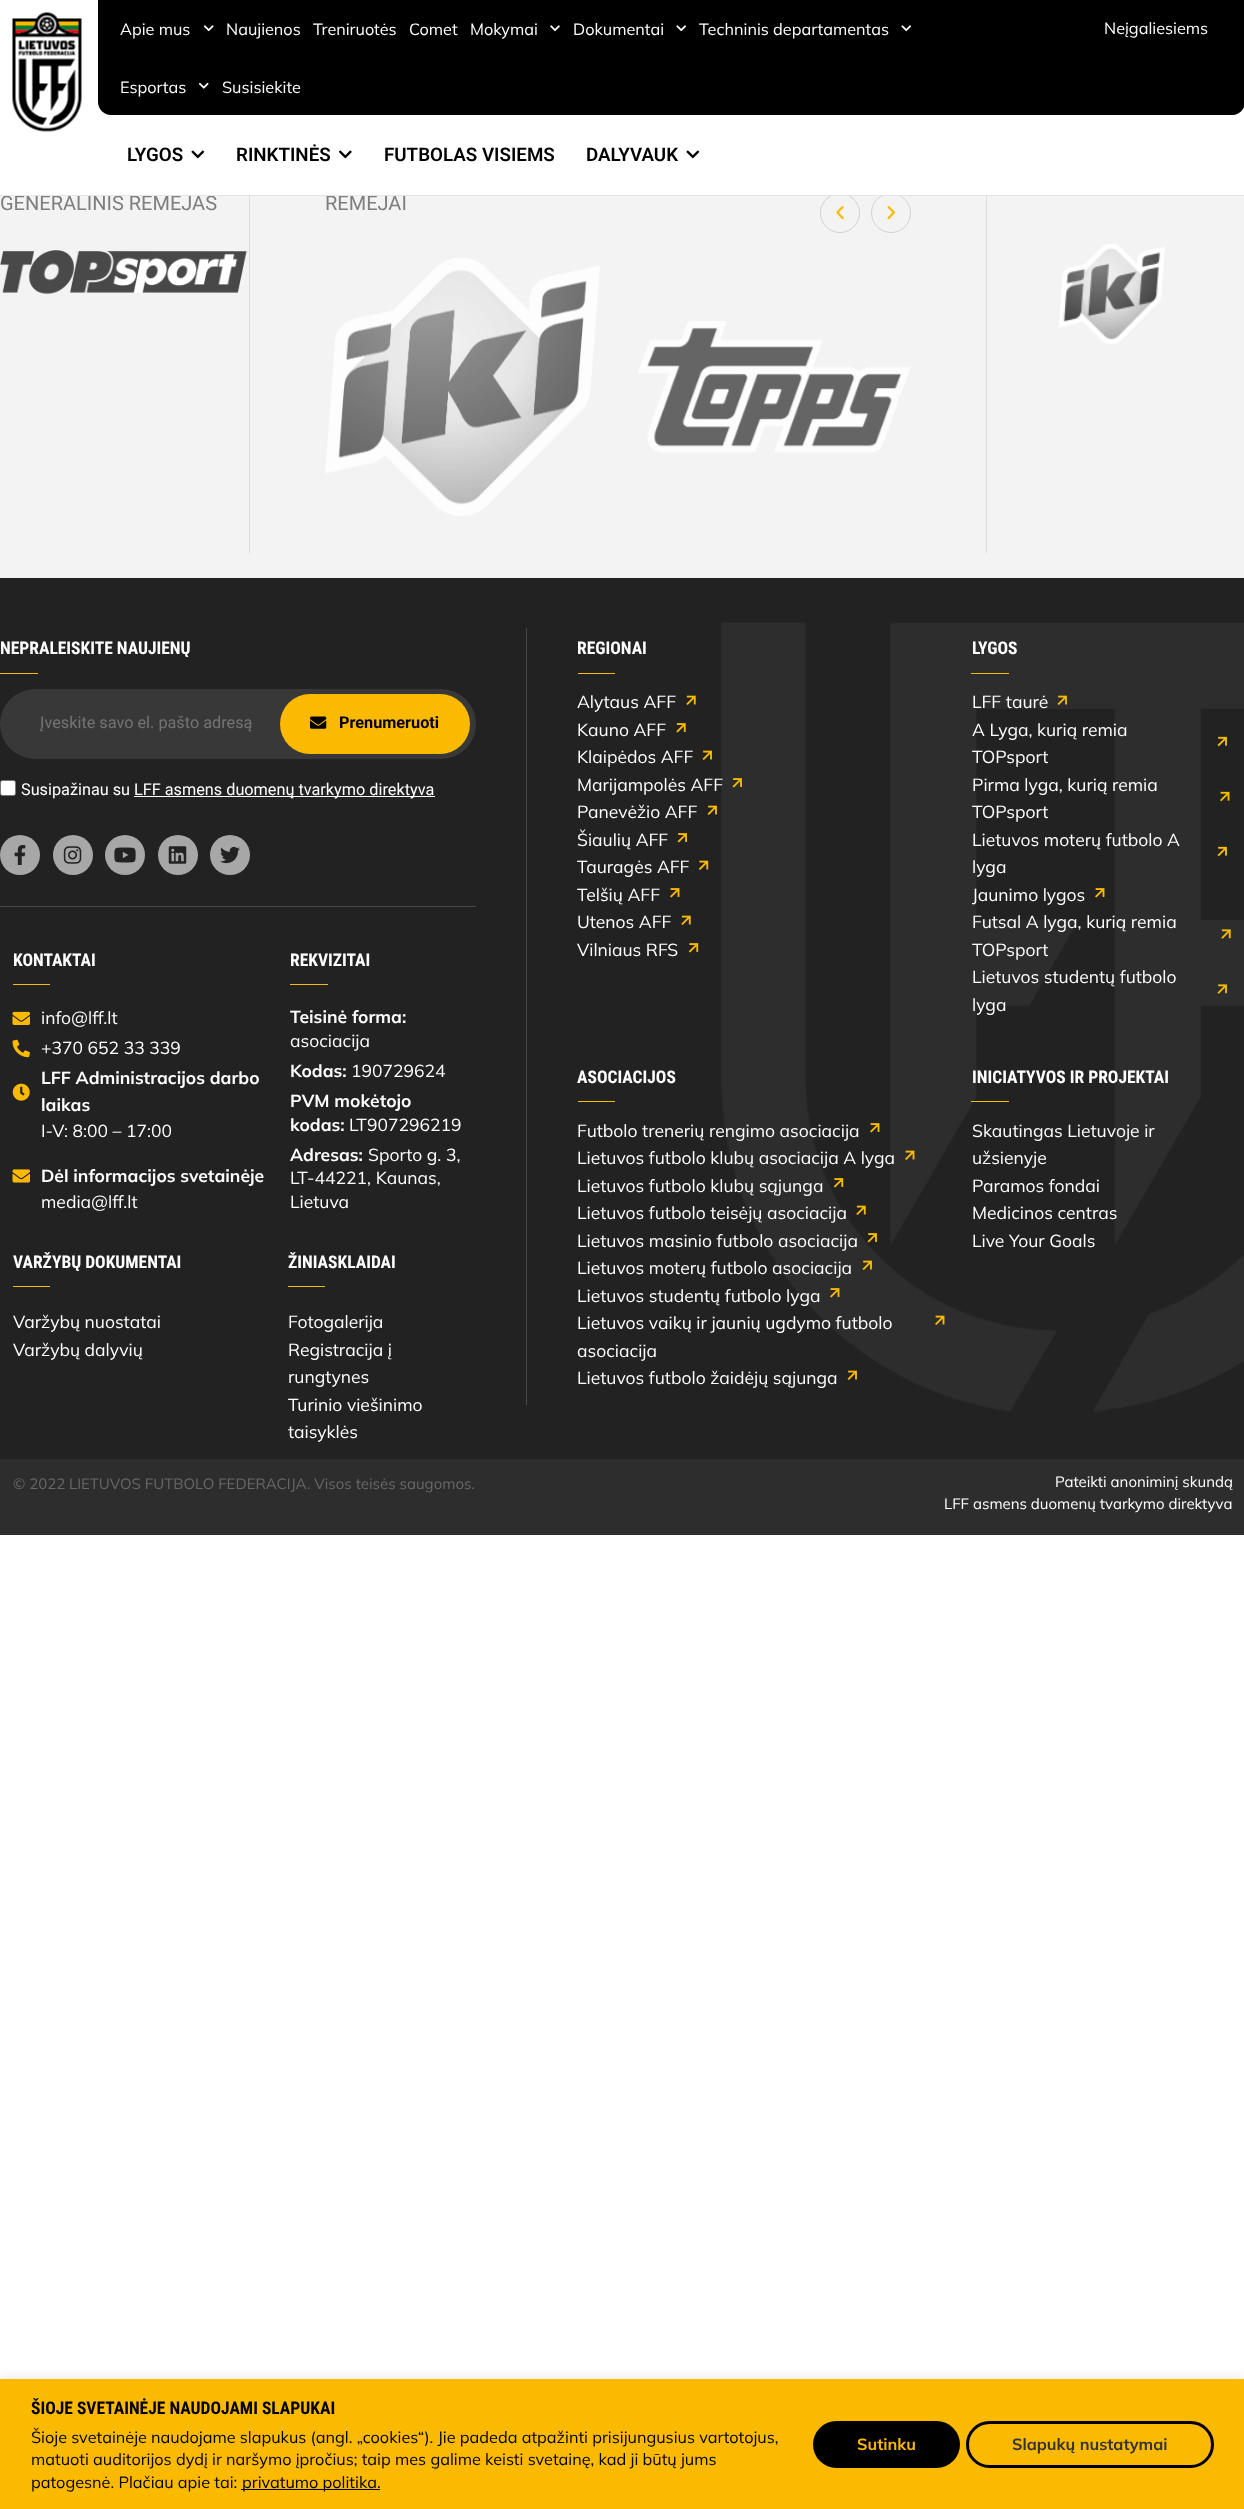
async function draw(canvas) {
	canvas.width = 1244;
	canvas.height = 2509;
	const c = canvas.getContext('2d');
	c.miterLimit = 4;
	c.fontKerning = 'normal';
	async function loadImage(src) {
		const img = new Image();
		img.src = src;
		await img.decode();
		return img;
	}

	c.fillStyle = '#fff';
	c.fillRect(0, 0, 1244, 2509);
	c.fillStyle = '#f3f3f3';
	c.fillRect(0, 196, 1244, 382);
	c.font = '20px Roboto';
	c.fillStyle = '#7e7e7e';
	c.fillText('GENERALINIS RĖMĖJAS', 0, 210);
	c.fillText('RĖMĖJAI', 325, 210);
	c.beginPath();
	c.arc(840, 213, 19.5, 0, 2 * Math.PI);
	c.strokeStyle = '#d2d2d2';
	c.stroke();
	c.beginPath();
	c.arc(891, 213, 19.5, 0, 2 * Math.PI);
	c.stroke();
	c.fillStyle = '#fff';
	c.fillRect(146, 192, 754, 3);
	c.fillStyle = '#e6e6e6';
	c.fillRect(0, 195, 1244, 1);
	c.drawImage(await loadImage('img1.png'), 12, 12, 70, 120);
	c.fillStyle = '#000';
	c.beginPath();
	c.moveTo(98, 0);
	c.lineTo(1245, 0);
	c.lineTo(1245, 102);
	c.bezierCurveTo(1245, 109, 1239, 115, 1232, 115);
	c.lineTo(111, 115);
	c.bezierCurveTo(104, 115, 98, 109, 98, 102);
	c.closePath();
	c.fill();
	c.font = '16.25px Mulish';
	c.fillStyle = '#fff';
	c.fillText('Apie mus', 120, 35);
	c.drawImage(await loadImage('img2.png'), 203, 25, 11, 7);
	for (const [text, x, y] of [
		['Naujienos', 226, 35],
		['Treniruotės', 313, 35],
		['Comet', 409, 35],
		['Mokymai', 470, 35],
	]) {
		c.fillText(text, x, y);
	}
	c.drawImage(await loadImage('img3.png'), 550, 25, 10, 7);
	c.fillText('Dokumentai', 573, 35);
	c.drawImage(await loadImage('img4.png'), 676, 25, 10, 7);
	c.fillText('Techninis departamentas', 699, 35);
	c.drawImage(await loadImage('img4.png'), 901, 25, 10, 7);
	c.fillText('Esportas', 120, 93);
	c.drawImage(await loadImage('img5.png'), 198, 82, 11, 7);
	c.fillText('Susisiekite', 222, 93);
	c.fillText('Neįgaliesiems', 1104, 34);
	c.font = '600 18.75px Roboto';
	c.fillStyle = '#000';
	c.fillText('LYGOS', 127, 161);
	c.drawImage(await loadImage('img6.png'), 191, 150, 14, 9);
	c.fillText('RINKTINĖS', 236, 161);
	c.drawImage(await loadImage('img7.png'), 339, 150, 13, 9);
	c.fillText('FUTBOLAS VISIEMS', 384, 161);
	c.fillText('DALYVAUK', 586, 161);
	c.drawImage(await loadImage('img6.png'), 686, 150, 14, 9);
	c.drawImage(await loadImage('img8.png'), 0, 250, 247, 44);
	c.fillStyle = '#ddd';
	c.fillRect(986, 196, 1, 357);
	c.fillRect(249, 196, 1, 357);
	c.drawImage(await loadImage('img9.png'), 836, 206, 8, 14);
	c.drawImage(await loadImage('img10.png'), 887, 206, 8, 14);
	c.drawImage(await loadImage('img11.png'), 325, 257, 275, 259);
	c.drawImage(await loadImage('img12.png'), 638, 321, 273, 132);
	c.drawImage(await loadImage('img13.png'), 1059, 244, 106, 100);
	c.fillStyle = '#222';
	c.fillRect(0, 578, 1244, 881);
	c.drawImage(await loadImage('img14.png'), 721, 622, 523, 791);
	c.font = 'bold 17.5px Roboto Condensed';
	c.fillStyle = '#fff';
	c.fillText('NEPRALEISKITE NAUJIENŲ', 0, 654);
	c.fillStyle = '#fbba00';
	c.fillRect(0, 673, 38, 1);
	c.fillStyle = '#383838';
	c.beginPath();
	c.roundRect(0, 689, 476, 70, 35);
	c.fill();
	c.font = '16.25px Roboto';
	c.fillStyle = '#747474';
	c.fillText('Įveskite savo el. pašto adresą', 40, 728);
	c.fillStyle = '#fbba00';
	c.beginPath();
	c.roundRect(280, 694, 190, 60, 30);
	c.fill();
	c.drawImage(await loadImage('img15.png'), 310, 716, 17, 13);
	c.font = 'bold 16.25px Roboto';
	c.fillStyle = '#000';
	c.fillText('Prenumeruoti', 339, 728);
	c.fillStyle = '#fff';
	c.beginPath();
	c.roundRect(0.5, 780.5, 15, 15, 2);
	c.fill();
	c.strokeStyle = '#767676';
	c.stroke();
	c.font = '16.25px Roboto';
	c.fillText('Susipažinau su', 21, 795);
	c.fillRect(134, 796, 301, 1);
	c.fillText('LFF asmens duomenų tvarkymo direktyva', 134, 795);
	c.fillStyle = '#a7a7a7';
	c.beginPath();
	c.arc(20, 855, 20, 0, 2 * Math.PI);
	c.fill();
	c.drawImage(await loadImage('img16.png'), 14, 845, 12, 20);
	c.beginPath();
	c.arc(73, 855, 20, 0, 2 * Math.PI);
	c.fill();
	c.drawImage(await loadImage('img17.png'), 63, 846, 19, 18);
	c.beginPath();
	c.arc(125, 855, 20, 0, 2 * Math.PI);
	c.fill();
	c.drawImage(await loadImage('img18.png'), 114, 847, 22, 16);
	c.beginPath();
	c.arc(178, 855, 20, 0, 2 * Math.PI);
	c.fill();
	c.drawImage(await loadImage('img19.png'), 168, 846, 19, 18);
	c.beginPath();
	c.arc(230, 855, 20, 0, 2 * Math.PI);
	c.fill();
	c.drawImage(await loadImage('img20.png'), 220, 846, 20, 18);
	c.fillStyle = '#484848';
	c.fillRect(0, 906, 476, 1);
	c.font = 'bold 17.5px Roboto Condensed';
	c.fillStyle = '#fff';
	c.fillText('KONTAKTAI', 13, 966);
	c.fillStyle = '#fbba00';
	c.fillRect(13, 984, 37, 1);
	c.drawImage(await loadImage('img21.png'), 12, 1011, 18, 14);
	c.font = '17.5px Mulish';
	c.fillStyle = '#fff';
	c.fillText('info@lff.lt', 41, 1024);
	c.drawImage(await loadImage('img22.png'), 12, 1039, 18, 19);
	c.fillText('+370 652 33 339', 41, 1054);
	c.drawImage(await loadImage('img23.png'), 12, 1083, 18, 18);
	c.font = 'bold 17.5px Mulish';
	c.fillText('LFF Administracijos darbo', 41, 1084);
	c.fillText('laikas', 41, 1111);
	c.font = '17.5px Mulish';
	c.fillText('I-V: 8:00 – 17:00', 41, 1137);
	c.drawImage(await loadImage('img24.png'), 12, 1169, 18, 14);
	c.font = 'bold 17.5px Mulish';
	c.fillText('Dėl informacijos svetainėje', 41, 1182);
	c.font = '17.5px Mulish';
	c.fillText('media@lff.lt', 41, 1208);
	c.font = 'bold 17.5px Roboto Condensed';
	c.fillText('REKVIZITAI', 290, 966);
	c.fillStyle = '#fbba00';
	c.fillRect(290, 984, 38, 1);
	c.font = 'bold 17.5px Mulish';
	c.fillStyle = '#fff';
	c.fillText('Teisinė forma:', 290, 1023);
	c.font = '17.5px Mulish';
	c.fillText('asociacija', 290, 1047);
	c.font = 'bold 17.5px Mulish';
	c.fillText('Kodas:', 290, 1077);
	c.font = '17.5px Mulish';
	c.fillText('190729624', 351, 1077);
	c.font = 'bold 17.5px Mulish';
	c.fillText('PVM mokėtojo', 290, 1107);
	c.fillText('kodas:', 290, 1131);
	c.font = '17.5px Mulish';
	c.fillText('LT907296219', 349, 1131);
	c.font = 'bold 17.5px Mulish';
	c.fillText('Adresas:', 290, 1161);
	c.font = '17.5px Mulish';
	for (const [text, x, y] of [
		['Sporto g. 3,', 368, 1161],
		['LT-44221, Kaunas,', 290, 1184],
		['Lietuva', 290, 1208],
	]) {
		c.fillText(text, x, y);
	}
	c.font = 'bold 17.5px Roboto Condensed';
	c.fillText('VARŽYBŲ DOKUMENTAI', 13, 1268);
	c.fillStyle = '#fbba00';
	c.fillRect(13, 1286, 37, 1);
	c.font = '17.5px Mulish';
	c.fillStyle = '#fff';
	c.fillText('Varžybų nuostatai', 13, 1328);
	c.fillText('Varžybų dalyvių', 13, 1356);
	c.font = 'bold 17.5px Roboto Condensed';
	c.fillText('ŽINIASKLAIDAI', 288, 1268);
	c.fillStyle = '#fbba00';
	c.fillRect(288, 1286, 37, 1);
	c.font = '17.5px Mulish';
	c.fillStyle = '#fff';
	for (const [text, x, y] of [
		['Fotogalerija', 288, 1328],
		['Registracija į', 288, 1356],
		['rungtynes', 288, 1383],
		['Turinio viešinimo', 288, 1411],
		['taisyklės', 288, 1438],
	]) {
		c.fillText(text, x, y);
	}
	c.fillStyle = '#484848';
	c.fillRect(526, 628, 1, 777);
	c.font = 'bold 17.5px Roboto Condensed';
	c.fillStyle = '#fff';
	c.fillText('REGIONAI', 577, 654);
	c.fillStyle = '#fbba00';
	c.fillRect(578, 673, 37, 1);
	c.font = '17.5px Mulish';
	c.fillStyle = '#fff';
	c.fillText('Alytaus AFF', 577, 708);
	c.drawImage(await loadImage('img25.png'), 686, 695, 10, 10);
	c.fillText('Kauno AFF', 577, 736);
	c.drawImage(await loadImage('img26.png'), 676, 723, 10, 10);
	c.fillText('Klaipėdos AFF', 577, 763);
	c.drawImage(await loadImage('img27.png'), 702, 750, 10, 10);
	c.fillText('Marijampolės AFF', 577, 791);
	c.drawImage(await loadImage('img28.png'), 732, 778, 10, 10);
	c.fillText('Panevėžio AFF', 577, 818);
	c.drawImage(await loadImage('img27.png'), 707, 805, 10, 10);
	c.fillText('Šiaulių AFF', 577, 846);
	c.drawImage(await loadImage('img29.png'), 677, 833, 10, 10);
	c.fillText('Tauragės AFF', 577, 873);
	c.drawImage(await loadImage('img30.png'), 698, 860, 11, 10);
	c.fillText('Telšių AFF', 577, 901);
	c.drawImage(await loadImage('img31.png'), 670, 888, 10, 10);
	c.fillText('Utenos AFF', 577, 928);
	c.drawImage(await loadImage('img25.png'), 681, 915, 10, 10);
	c.fillText('Vilniaus RFS', 577, 956);
	c.drawImage(await loadImage('img32.png'), 688, 943, 11, 10);
	c.font = 'bold 17.5px Roboto Condensed';
	c.fillText('LYGOS', 972, 654);
	c.fillStyle = '#fbba00';
	c.fillRect(971, 673, 38, 1);
	c.font = '17.5px Mulish';
	c.fillStyle = '#fff';
	c.fillText('LFF taurė', 972, 708);
	c.drawImage(await loadImage('img33.png'), 1057, 695, 10, 10);
	c.fillText('A Lyga, kurią remia', 972, 736);
	c.drawImage(await loadImage('img34.png'), 1217, 736, 10, 11);
	c.fillText('TOPsport', 972, 763);
	c.fillText('Pirma lyga, kurią remia', 972, 791);
	c.drawImage(await loadImage('img35.png'), 1220, 791, 10, 11);
	c.fillText('TOPsport', 972, 818);
	c.fillText('Lietuvos moterų futbolo A', 972, 846);
	c.drawImage(await loadImage('img34.png'), 1217, 846, 10, 11);
	c.fillText('lyga', 972, 873);
	c.fillText('Jaunimo lygos', 972, 901);
	c.drawImage(await loadImage('img31.png'), 1095, 888, 10, 10);
	c.fillText('Futsal A lyga, kurią remia', 972, 928);
	c.drawImage(await loadImage('img36.png'), 1221, 929, 10, 10);
	c.fillText('TOPsport', 972, 956);
	c.fillText('Lietuvos studentų futbolo', 972, 983);
	c.drawImage(await loadImage('img37.png'), 1217, 984, 10, 10);
	c.fillText('lyga', 972, 1011);
	c.font = 'bold 17.5px Roboto Condensed';
	c.fillText('ASOCIACIJOS', 577, 1083);
	c.fillStyle = '#fbba00';
	c.fillRect(578, 1101, 37, 1);
	c.font = '17.5px Mulish';
	c.fillStyle = '#fff';
	c.fillText('Futbolo trenerių rengimo asociacija', 577, 1137);
	c.drawImage(await loadImage('img31.png'), 870, 1123, 10, 10);
	c.fillText('Lietuvos futbolo klubų asociacija A lyga', 577, 1164);
	c.drawImage(await loadImage('img38.png'), 905, 1150, 10, 10);
	c.fillText('Lietuvos futbolo klubų sąjunga', 577, 1192);
	c.drawImage(await loadImage('img32.png'), 833, 1178, 11, 10);
	c.fillText('Lietuvos futbolo teisėjų asociacija', 577, 1219);
	c.drawImage(await loadImage('img25.png'), 856, 1205, 10, 10);
	c.fillText('Lietuvos masinio futbolo asociacija', 577, 1247);
	c.drawImage(await loadImage('img39.png'), 867, 1233, 10, 10);
	c.fillText('Lietuvos moterų futbolo asociacija', 577, 1274);
	c.drawImage(await loadImage('img33.png'), 862, 1260, 10, 10);
	c.fillText('Lietuvos studentų futbolo lyga', 577, 1302);
	c.drawImage(await loadImage('img40.png'), 830, 1288, 10, 10);
	c.fillText('Lietuvos vaikų ir jaunių ugdymo futbolo', 577, 1329);
	c.drawImage(await loadImage('img38.png'), 935, 1315, 10, 10);
	c.fillText('asociacija', 577, 1357);
	c.fillText('Lietuvos futbolo žaidėjų sąjunga', 577, 1384);
	c.drawImage(await loadImage('img27.png'), 847, 1370, 10, 10);
	c.font = 'bold 17.5px Roboto Condensed';
	c.fillText('INICIATYVOS IR PROJEKTAI', 972, 1083);
	c.fillStyle = '#fbba00';
	c.fillRect(971, 1101, 38, 1);
	c.font = '17.5px Mulish';
	c.fillStyle = '#fff';
	for (const [text, x, y] of [
		['Skautingas Lietuvoje ir', 972, 1137],
		['užsienyje', 972, 1164],
		['Paramos fondai', 972, 1192],
		['Medicinos centras', 972, 1219],
		['Live Your Goals', 972, 1247],
	]) {
		c.fillText(text, x, y);
	}
	c.fillStyle = '#2d2d2d';
	c.fillRect(0, 1459, 1244, 76);
	c.font = '15px Mulish';
	c.fillStyle = '#686868';
	c.fillText('© 2022 LIETUVOS FUTBOLO FEDERACIJA. Visos teisės saugomos.', 13, 1489);
	c.fillStyle = '#fff';
	c.fillText('Pateikti anoniminį skundą', 1055, 1487);
	c.fillText('LFF asmens duomenų tvarkymo direktyva', 944, 1509);
	c.fillStyle = '#acabab4d';
	c.filter = 'blur(6px)';
	c.beginPath();
	c.rect(0, 2378, 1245, 131);
	c.fill();
	c.filter = 'none';
	c.fillStyle = '#fbba00';
	c.fillRect(0, 2379, 1244, 130);
	c.font = 'bold 17.5px Roboto Condensed';
	c.fillStyle = '#000';
	c.fillText('ŠIOJE SVETAINĖJE NAUDOJAMI SLAPUKAI', 31, 2414);
	c.font = '16.25px Mulish';
	for (const [text, x, y] of [
		['Šioje svetainėje naudojame slapukus (angl. „cookies“). Jie padeda atpažinti prisijungusius vartotojus,', 31, 2443],
		['matuoti auditorijos dydį ir naršymo įpročius; taip mes galime keisti svetainę, kad ji būtų jums', 31, 2465],
		['patogesnė. Plačiau apie tai:', 31, 2488],
	]) {
		c.fillText(text, x, y);
	}
	c.fillRect(241, 2489, 139, 1);
	c.fillText('privatumo politika.', 242, 2488);
	c.beginPath();
	c.roundRect(813, 2421, 147, 47, 23.5);
	c.fill();
	c.font = 'bold 16.25px Mulish';
	c.fillStyle = '#fbba00';
	c.fillText('Sutinku', 857, 2450);
	c.beginPath();
	c.roundRect(967.5, 2422.5, 245, 44, 22);
	c.strokeStyle = '#000';
	c.lineWidth = 3;
	c.stroke();
	c.fillStyle = '#333';
	c.fillText('Slapukų nustatymai', 1012, 2450);
}

draw(document.querySelector('canvas'));
